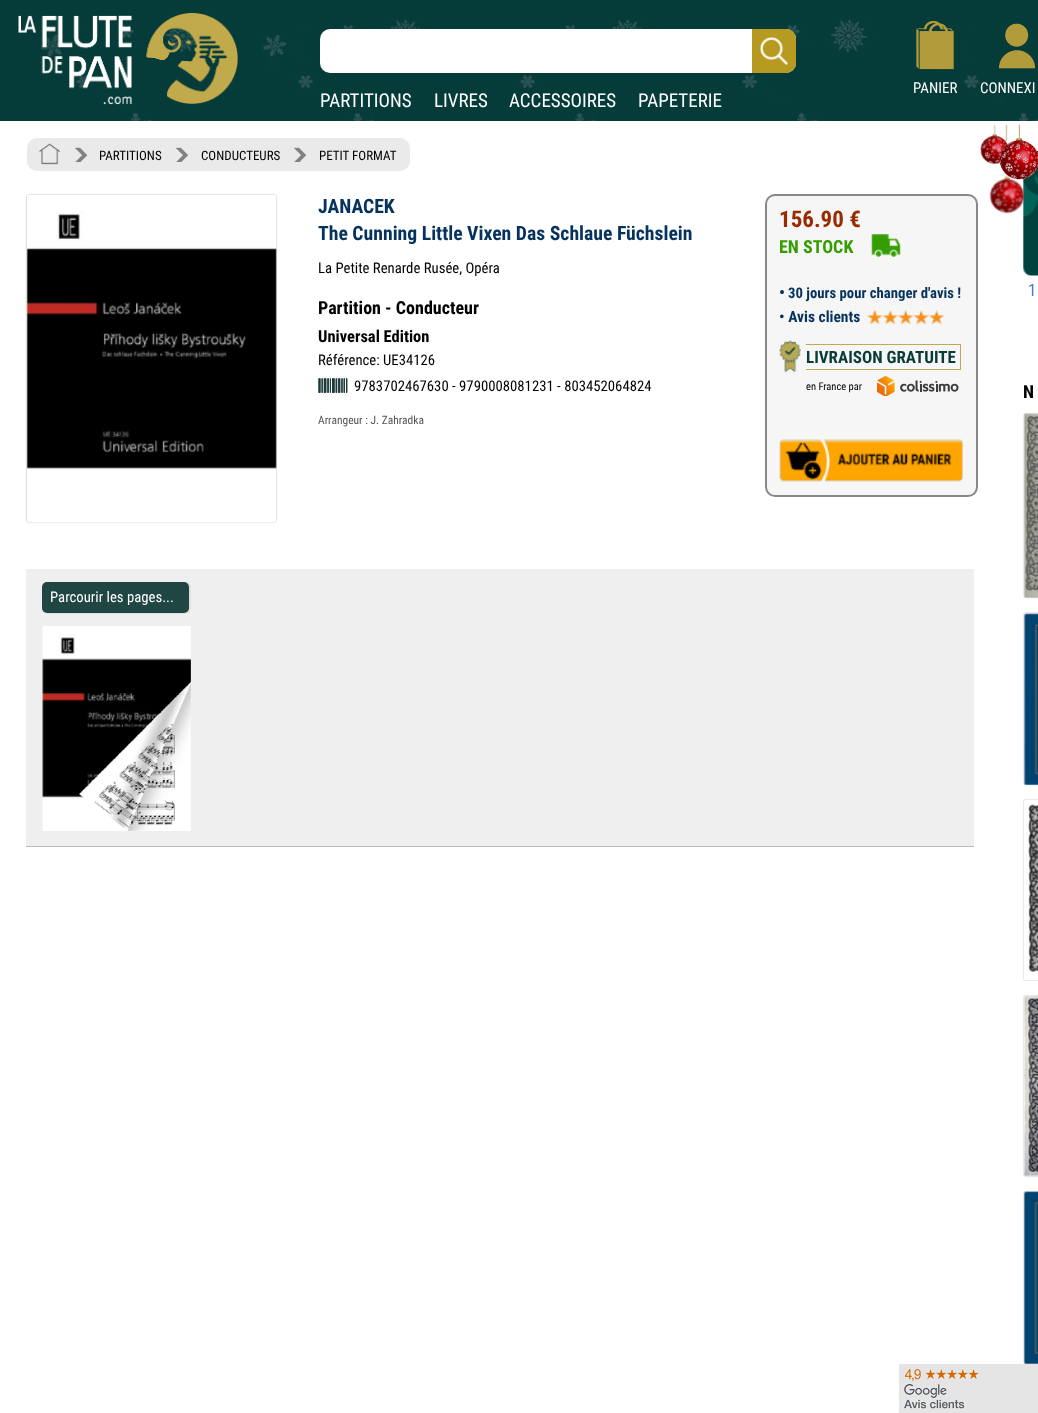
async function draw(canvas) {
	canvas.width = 1038;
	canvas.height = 1413;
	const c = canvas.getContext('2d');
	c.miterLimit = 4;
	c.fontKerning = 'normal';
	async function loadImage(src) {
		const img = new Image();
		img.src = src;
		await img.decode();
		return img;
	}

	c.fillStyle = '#fff';
	c.fillRect(0, 0, 1038, 1413);
	c.drawImage(await loadImage('img1.png'), 0, 0, 1038, 121);
	c.drawImage(await loadImage('img2.png'), 18, 13, 220, 92);
	c.drawImage(await loadImage('img3.png'), 916, 20, 38, 50);
	c.font = '15px Roboto Condensed';
	c.fillText('PANIER', 913, 93);
	c.drawImage(await loadImage('img4.png'), 998, 23, 38, 46);
	c.fillText('CONNEXI', 980, 93);
	c.beginPath();
	c.roundRect(320, 29, 476, 44, 10);
	c.fill();
	c.drawImage(await loadImage('img5.png'), 752, 29, 44, 44);
	c.font = '19px Roboto Condensed';
	for (const [text, x, y] of [
		['PARTITIONS', 320, 107],
		['LIVRES', 434, 107],
		['ACCESSOIRES', 509, 107],
		['PAPETERIE', 638, 107],
	]) {
		c.fillText(text, x, y);
	}
	c.fillStyle = '#eaeaea';
	c.beginPath();
	c.roundRect(27, 138, 383, 33, 10);
	c.fill();
	c.drawImage(await loadImage('img6.png'), 39, 143, 21, 22);
	c.drawImage(await loadImage('img7.png'), 75, 147, 13, 15);
	c.font = '13px Roboto Condensed';
	c.fillStyle = '#000';
	c.fillText('PARTITIONS', 99, 160);
	c.drawImage(await loadImage('img8.png'), 176, 147, 13, 15);
	c.fillText('CONDUCTEURS', 201, 160);
	c.drawImage(await loadImage('img9.png'), 294, 147, 13, 15);
	c.fillText('PETIT FORMAT', 319, 160);
	c.beginPath();
	c.roundRect(26.4, 194.4, 250.2, 328.2, 2.6);
	c.strokeStyle = '#d1d1d1';
	c.lineWidth = 0.8;
	c.stroke();
	c.drawImage(await loadImage('img10.png'), 26, 194, 251, 329);
	c.font = 'bold 19.7px Roboto Condensed';
	c.fillStyle = '#06335d';
	c.fillText('JANACEK', 318, 213);
	c.fillText('The Cunning Little Vixen Das Schlaue Füchslein', 318, 240);
	c.font = '14.75px Roboto Condensed';
	c.fillStyle = '#000';
	c.fillText('La Petite Renarde Rusée, Opéra', 318, 273);
	c.font = 'bold 18px Roboto Condensed';
	c.fillText('Partition - Conducteur', 318, 314);
	c.font = 'bold 16.5px Roboto Condensed';
	c.fillText('Universal Edition', 318, 342);
	c.font = '14.75px Roboto Condensed';
	c.fillText('Référence: UE34126', 318, 365);
	c.drawImage(await loadImage('img11.png'), 318, 378, 30, 15);
	c.fillText('9783702467630 - 9790008081231 - 803452064824', 354, 391);
	c.font = '11.5px Roboto Condensed';
	c.fillStyle = '#555';
	c.fillText('Arrangeur : J. Zahradka', 318, 424);
	c.fillStyle = '#f6f6f6';
	c.beginPath();
	c.roundRect(766, 195, 211, 301, 9);
	c.fill();
	c.strokeStyle = '#888';
	c.lineWidth = 2;
	c.stroke();
	c.font = 'bold 23px Roboto Condensed';
	c.fillStyle = '#9a2a00';
	c.fillText('156.90 €', 779, 227);
	c.font = 'bold 18px Roboto Condensed';
	c.fillStyle = '#349e01';
	c.fillText('EN STOCK', 779, 253);
	c.drawImage(await loadImage('img12.png'), 871, 234, 30, 23);
	c.font = 'bold 16.5px Roboto Condensed';
	c.fillStyle = '#06335d';
	c.fillText('•', 779, 298);
	c.font = 'bold 14.75px Roboto Condensed';
	c.fillText('30 jours pour changer d\'avis !', 788, 298);
	c.font = 'bold 15.5px Roboto Condensed';
	c.fillText('• Avis clients', 779, 322);
	c.drawImage(await loadImage('img13.png'), 867, 310, 78, 15);
	c.drawImage(await loadImage('img14.png'), 779, 340, 22, 33);
	c.font = 'bold 17px Roboto Condensed';
	c.fillStyle = '#093b39';
	c.fillText('LIVRAISON GRATUITE', 806, 363);
	for (const [x, y, w, h, color] of [
		[806, 344, 155, 1, '#bcaa5a'],
		[960, 344, 1, 26, '#bcaa5a'],
		[806, 369, 155, 1, '#bcaa5a'],
	]) {
		c.fillStyle = color;
		c.fillRect(x, y, w, h);
	}
	c.font = '10.5px Roboto Condensed';
	c.fillStyle = '#000';
	c.fillText('en France par', 806, 390);
	c.drawImage(await loadImage('img15.png'), 877, 375, 82, 21);
	c.drawImage(await loadImage('img16.png'), 779, 439, 184, 43);
	c.fillStyle = '#efefef';
	c.fillRect(26, 569, 948, 277);
	c.fillStyle = '#bbb';
	c.fillRect(26, 846, 948, 1);
	c.fillStyle = '#dfdfdf';
	c.filter = 'blur(0.5px)';
	c.beginPath();
	c.roundRect(42, 582, 149, 32, 6);
	c.fill();
	c.filter = 'none';
	c.fillStyle = '#204644';
	c.beginPath();
	c.roundRect(42, 582, 147, 31, 5);
	c.fill();
	c.font = '14.75px Roboto Condensed';
	c.fillStyle = '#fff';
	c.fillText('Parcourir les pages...', 50, 602);
	c.drawImage(await loadImage('img17.png'), 42, 626, 149, 205);
	c.drawImage(await loadImage('img18.png'), 79, 681, 112, 150);
	c.drawImage(await loadImage('img19.png'), 980, 124, 28, 41);
	c.drawImage(await loadImage('img23.png'), 1023, 151, 15, 125);
	c.drawImage(await loadImage('img22.png'), 989, 173, 36, 41);
	c.drawImage(await loadImage('img20.png'), 999, 124, 39, 56);
	c.drawImage(await loadImage('img21.png'), 1005, 124, 3, 18);
	c.font = '17px Roboto Condensed';
	c.fillStyle = '#487ecc';
	c.fillText('1', 1028, 296);
	c.font = 'bold 18px Roboto Condensed';
	c.fillStyle = '#000';
	c.fillText('N', 1023, 398);
	c.beginPath();
	c.roundRect(1023.4, 413.4, 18.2, 184.2, 2.6);
	c.strokeStyle = '#e1e1e8';
	c.lineWidth = 0.8;
	c.stroke();
	c.drawImage(await loadImage('img24.png'), 1024, 413, 14, 186);
	c.beginPath();
	c.roundRect(1023.4, 612.4, 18.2, 172.2, 2.6);
	c.stroke();
	c.drawImage(await loadImage('img25.png'), 1023, 613, 15, 173);
	c.beginPath();
	c.roundRect(1023.4, 799.4, 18.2, 181.2, 2.6);
	c.stroke();
	c.drawImage(await loadImage('img26.png'), 1024, 804, 14, 176);
	c.beginPath();
	c.roundRect(1023.4, 995.4, 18.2, 181.2, 2.6);
	c.stroke();
	c.drawImage(await loadImage('img27.png'), 1024, 995, 14, 182);
	c.beginPath();
	c.roundRect(1023.4, 1191.4, 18.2, 172.2, 2.6);
	c.stroke();
	c.drawImage(await loadImage('img28.png'), 1023, 1191, 15, 173);
	c.drawImage(await loadImage('img29.png'), 899, 1364, 139, 49);
}

draw(document.querySelector('canvas'));
